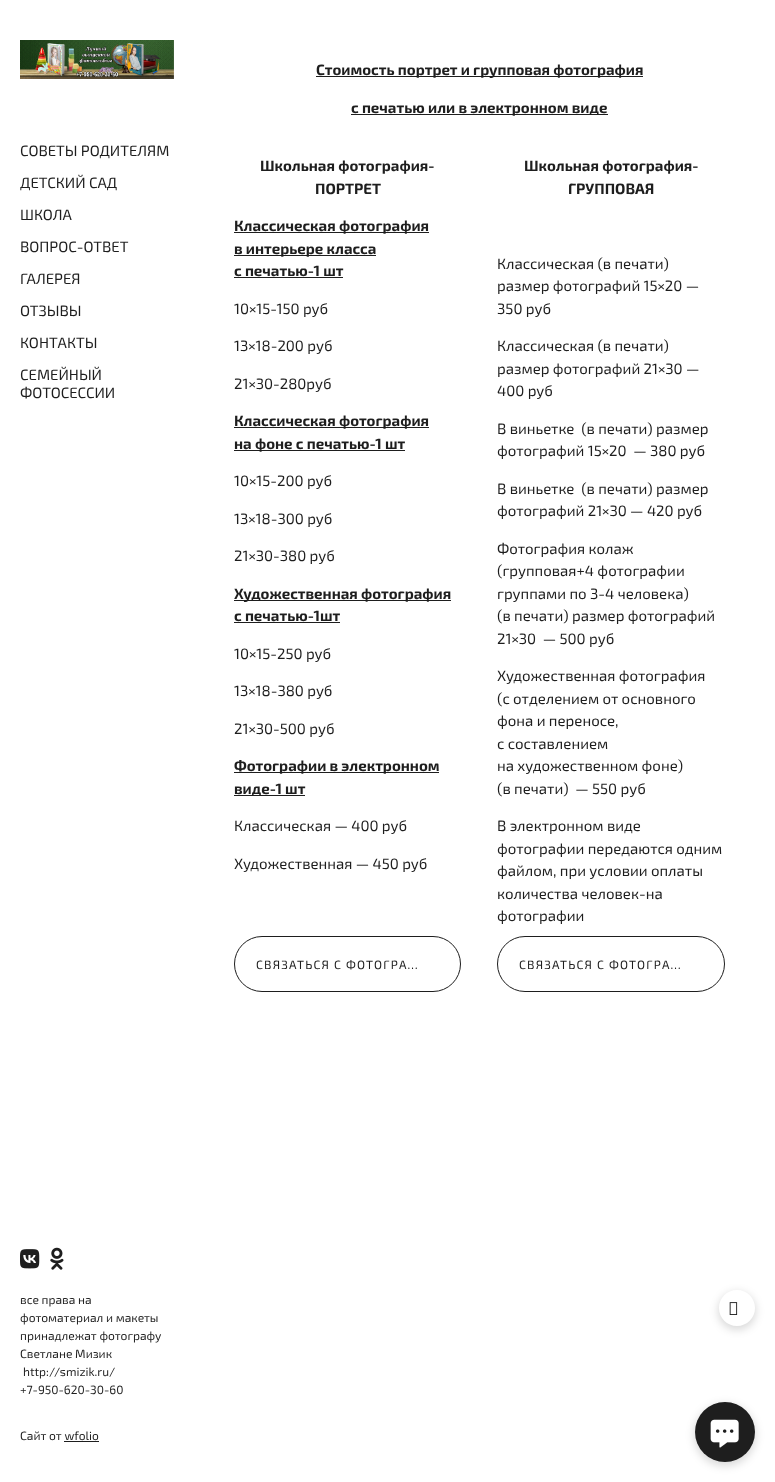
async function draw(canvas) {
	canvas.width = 775;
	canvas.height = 1482;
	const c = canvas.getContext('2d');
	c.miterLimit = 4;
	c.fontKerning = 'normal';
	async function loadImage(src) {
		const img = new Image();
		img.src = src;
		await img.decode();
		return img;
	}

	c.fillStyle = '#fff';
	c.fillRect(0, 0, 775, 1482);
	c.drawImage(await loadImage('img1.png'), 20, 40, 154, 39);
	c.font = '15px "Exo 2"';
	c.fillStyle = '#1e1e1e';
	for (const [text, x, y] of [
		['СОВЕТЫ РОДИТЕЛЯМ', 20, 156],
		['ДЕТСКИЙ САД', 20, 188],
		['ШКОЛА', 20, 220],
		['ВОПРОС-ОТВЕТ', 20, 252],
		['ГАЛЕРЕЯ', 20, 284],
		['ОТЗЫВЫ', 20, 316],
		['КОНТАКТЫ', 20, 348],
		['СЕМЕЙНЫЙ', 20, 380],
		['ФОТОСЕССИИ', 20, 398],
	]) {
		c.fillText(text, x, y);
	}
	c.drawImage(await loadImage('img2.png'), 20, 1249, 20, 20);
	c.drawImage(await loadImage('img3.png'), 50, 1247, 14, 23);
	c.font = '12px "Exo 2"';
	for (const [text, x, y] of [
		['все права на', 20, 1304],
		['фотоматериал и макеты', 20, 1322],
		['принадлежат фотографу', 20, 1340],
		['Светлане Мизик', 20, 1358],
		['http://smizik.ru/', 23, 1376],
		['+7-950-620-30-60', 20, 1394],
	]) {
		c.fillText(text, x, y);
	}
	c.font = '12px Liberation Sans';
	c.fillText('￼', 20, 1425);
	c.font = '12px "Exo 2"';
	c.fillText('Сайт от wfolio', 20, 1440);
	c.fillRect(64, 1441, 35, 1);
	c.fillRect(316, 76, 327, 1);
	c.font = 'bold 15px "Exo 2"';
	c.fillText('Стоимость портрет и групповая фотография', 316, 75);
	c.fillRect(351, 114, 257, 1);
	for (const [text, x, y] of [
		['с печатью или в электронном виде', 351, 113],
		['Школьная фотография-', 260, 171],
		['ПОРТРЕТ', 315, 194],
	]) {
		c.fillText(text, x, y);
	}
	c.fillRect(234, 232, 195, 1);
	c.fillText('Классическая фотография', 234, 231);
	c.fillRect(234, 255, 142, 1);
	c.fillText('в интерьере класса', 234, 254);
	c.fillText('с печатью-1 шт', 234, 276);
	c.fillRect(234, 277, 109, 1);
	c.font = '15px "Exo 2"';
	for (const [text, x, y] of [
		['10×15-150 руб', 234, 314],
		['13×18-200 руб', 234, 351],
		['21×30-280руб', 234, 389],
	]) {
		c.fillText(text, x, y);
	}
	c.fillRect(234, 427, 195, 1);
	c.font = 'bold 15px "Exo 2"';
	c.fillText('Классическая фотография', 234, 426);
	c.fillRect(234, 450, 171, 1);
	c.fillText('на фоне с печатью-1 шт', 234, 449);
	c.font = '15px "Exo 2"';
	for (const [text, x, y] of [
		['10×15-200 руб', 234, 486],
		['13×18-300 руб', 234, 524],
		['21×30-380 руб', 234, 561],
	]) {
		c.fillText(text, x, y);
	}
	c.fillRect(234, 600, 217, 1);
	c.font = 'bold 15px "Exo 2"';
	c.fillText('Художественная фотография', 234, 599);
	c.fillText('с печатью-1шт', 234, 621);
	c.fillRect(234, 622, 106, 1);
	c.font = '15px "Exo 2"';
	for (const [text, x, y] of [
		['10×15-250 руб', 234, 659],
		['13×18-380 руб', 234, 696],
		['21×30-500 руб', 234, 734],
	]) {
		c.fillText(text, x, y);
	}
	c.fillRect(234, 772, 205, 1);
	c.font = 'bold 15px "Exo 2"';
	c.fillText('Фотографии в электронном', 234, 771);
	c.fillRect(234, 795, 71, 1);
	c.fillText('виде-1 шт', 234, 794);
	c.font = '15px "Exo 2"';
	c.fillText('Классическая — 400 руб', 234, 831);
	c.fillText('Художественная — 450 руб', 234, 869);
	c.beginPath();
	c.roundRect(234.5, 936.5, 226, 55, 27.5);
	c.strokeStyle = '#1e1e1e';
	c.stroke();
	c.letterSpacing = '1.2px';
	c.font = '12px "Exo 2"';
	c.fillText('СВЯЗАТЬСЯ С ФОТОГРА…', 256, 969);
	c.letterSpacing = '0px';
	c.font = 'bold 15px "Exo 2"';
	c.fillText('Школьная фотография-', 524, 171);
	c.fillText('ГРУППОВАЯ', 568, 194);
	c.font = '15px "Exo 2"';
	for (const [text, x, y] of [
		['Классическая (в печати)', 497, 269],
		['размер фотографий 15×20 —', 497, 291],
		['350 руб', 497, 314],
		['Классическая (в печати)', 497, 351],
		['размер фотографий 21×30 —', 497, 374],
		['400 руб', 497, 396],
		['В виньетке  (в печати) размер', 497, 434],
		['фотографий 15×20  — 380 руб', 497, 456],
		['В виньетке  (в печати) размер', 497, 494],
		['фотографий 21×30 — 420 руб', 497, 516],
		['Фотография колаж', 497, 554],
		['(групповая+4 фотографии', 497, 576],
		['группами по 3-4 человека)', 497, 599],
		['(в печати) размер фотографий', 497, 621],
		['21×30  — 500 руб', 497, 644],
		['Художественная фотография', 497, 681],
		['(с отделением от основного', 497, 704],
		['фона и переносе,', 497, 726],
		['с составлением', 497, 749],
		['на художественном фоне)', 497, 771],
		['(в печати)  — 550 руб', 497, 794],
		['В электронном виде', 497, 831],
		['фотографии передаются одним', 497, 854],
		['файлом, при условии оплаты', 497, 876],
		['количества человек-на', 497, 899],
		['фотографии', 497, 921],
	]) {
		c.fillText(text, x, y);
	}
	c.beginPath();
	c.roundRect(497.5, 936.5, 227, 55, 27.5);
	c.stroke();
	c.letterSpacing = '1.2px';
	c.font = '12px "Exo 2"';
	c.fillText('СВЯЗАТЬСЯ С ФОТОГРА…', 519, 969);
	c.save();
	c.beginPath();
	c.moveTo(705, 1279);
	c.lineTo(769, 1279);
	c.lineTo(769, 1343);
	c.lineTo(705, 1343);
	c.closePath();
	c.moveTo(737, 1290);
	c.bezierCurveTo(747, 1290, 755, 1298, 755, 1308);
	c.bezierCurveTo(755, 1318, 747, 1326, 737, 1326);
	c.bezierCurveTo(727, 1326, 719, 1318, 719, 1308);
	c.bezierCurveTo(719, 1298, 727, 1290, 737, 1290);
	c.closePath();
	c.clip('evenodd');
	c.fillStyle = '#00000026';
	c.filter = 'blur(4px)';
	c.beginPath();
	c.roundRect(718, 1292, 38, 38, 19);
	c.fill();
	c.filter = 'none';
	c.restore();
	c.drawImage(await loadImage('img4.png'), 729, 1302, 9, 13);
	c.fillStyle = '#00000026';
	c.filter = 'blur(4px)';
	c.beginPath();
	c.roundRect(694, 1404, 62, 62, 31);
	c.fill();
	c.filter = 'none';
	c.fillStyle = '#1e1e1e';
	c.beginPath();
	c.arc(725, 1432, 30, 0, 2 * Math.PI);
	c.fill();
	c.drawImage(await loadImage('img5.png'), 710, 1419, 29, 29);
}

draw(document.querySelector('canvas'));
